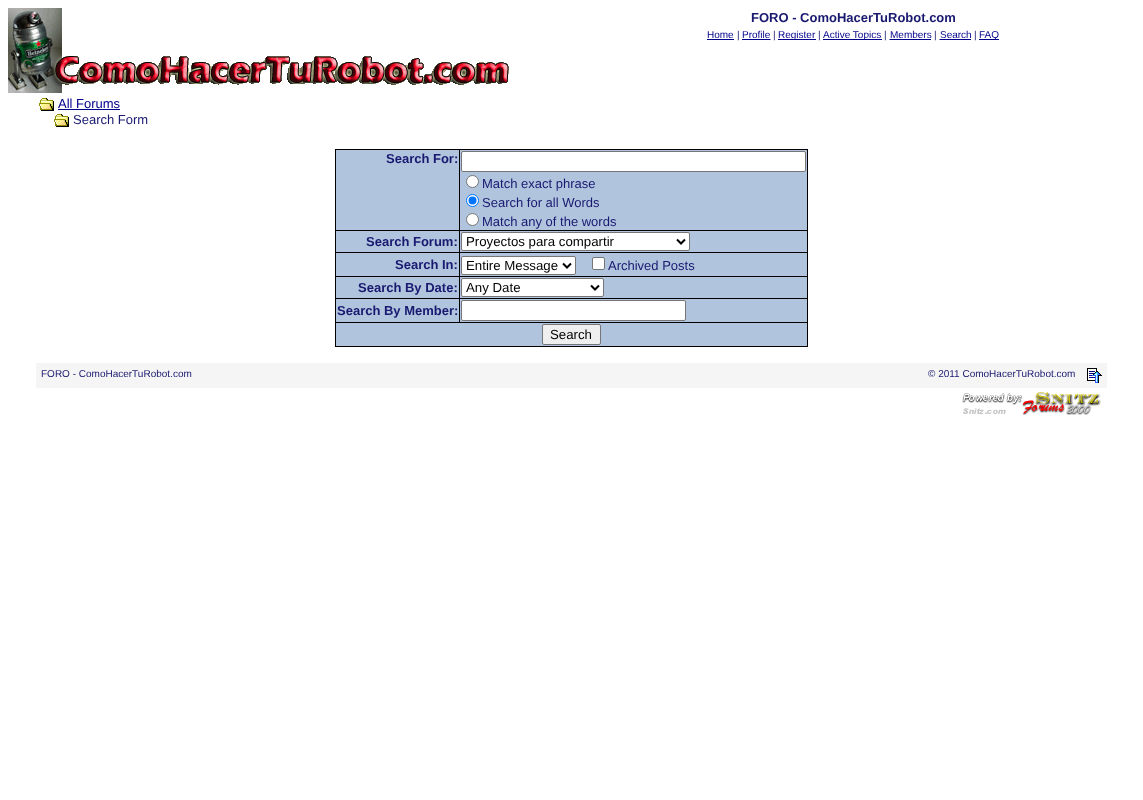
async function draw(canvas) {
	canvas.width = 1143;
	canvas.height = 800;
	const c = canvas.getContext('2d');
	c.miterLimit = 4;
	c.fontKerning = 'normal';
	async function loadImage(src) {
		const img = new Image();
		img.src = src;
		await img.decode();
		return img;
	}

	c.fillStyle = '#fff';
	c.fillRect(0, 0, 1143, 800);
	c.drawImage(await loadImage('img1.png'), 8, 8, 501, 85);
	c.font = 'bold 13px Liberation Sans';
	c.fillStyle = '#191970';
	c.fillText('FORO - ComoHacerTuRobot.com', 751, 22);
	c.font = '10px Liberation Sans';
	c.fillStyle = '#00008b';
	c.fillText('Home', 707, 38);
	c.fillRect(707, 39, 27, 1);
	c.fillStyle = '#191970';
	c.fillText('|', 737, 38);
	c.fillStyle = '#00008b';
	c.fillText('Profile', 742, 38);
	c.beginPath();
	c.moveTo(742, 39.5);
	c.lineTo(770.5, 39.5);
	c.strokeStyle = '#00008b';
	c.setLineDash([1, 1]);
	c.stroke();
	c.fillRect(742, 39, 28, 1);
	c.fillStyle = '#191970';
	c.fillText('|', 773, 38);
	c.fillStyle = '#00008b';
	c.fillRect(778, 39, 38, 1);
	c.fillText('Register', 778, 38);
	c.fillStyle = '#191970';
	c.fillText('|', 818, 38);
	c.fillStyle = '#00008b';
	c.fillRect(823, 39, 59, 1);
	c.fillText('Active Topics', 823, 38);
	c.fillStyle = '#191970';
	c.fillText('|', 884, 38);
	c.fillStyle = '#00008b';
	c.fillText('Members', 890, 38);
	c.beginPath();
	c.moveTo(889.5, 39.5);
	c.lineTo(931.5, 39.5);
	c.stroke();
	c.fillRect(890, 39, 41, 1);
	c.fillStyle = '#191970';
	c.fillText('|', 934, 38);
	c.fillStyle = '#00008b';
	c.fillText('Search', 940, 38);
	c.beginPath();
	c.moveTo(939.5, 39.5);
	c.lineTo(971, 39.5);
	c.stroke();
	c.fillRect(940, 39, 31, 1);
	c.fillStyle = '#191970';
	c.fillText('|', 974, 38);
	c.fillStyle = '#00008b';
	c.fillRect(979, 39, 20, 1);
	c.fillText('FAQ', 979, 38);
	c.drawImage(await loadImage('img2.png'), 39, 98, 15, 13);
	c.font = '13px Liberation Sans';
	c.fillText('All Forums', 58, 108);
	c.fillRect(58, 109, 62, 1);
	c.drawImage(await loadImage('img2.png'), 54, 114, 15, 13);
	c.fillStyle = '#191970';
	c.fillText('Search Form', 73, 124);
	c.fillStyle = '#000';
	c.fillRect(335, 149, 473, 198);
	c.fillStyle = '#b0c4de';
	c.fillRect(336, 150, 123, 80);
	c.font = 'bold 13px Liberation Sans';
	c.fillStyle = '#191970';
	c.fillText('Search For:', 386, 163);
	c.fillStyle = '#b0c4de';
	c.fillRect(460, 150, 347, 80);
	c.fillStyle = '#fff';
	c.beginPath();
	c.roundRect(461.5, 151.5, 344, 20, 1.5);
	c.fill();
	c.strokeStyle = '#767676';
	c.setLineDash([]);
	c.stroke();
	c.beginPath();
	c.arc(472.5, 181.5, 6, 0, 2 * Math.PI);
	c.fill();
	c.stroke();
	c.font = '13px Liberation Sans';
	c.fillStyle = '#191970';
	c.fillText('Match exact phrase', 482, 188);
	c.fillStyle = '#fff';
	c.beginPath();
	c.arc(472.5, 200.5, 6, 0, 2 * Math.PI);
	c.fill();
	c.strokeStyle = '#0075ff';
	c.stroke();
	c.fillStyle = '#0075ff';
	c.beginPath();
	c.arc(472.5, 200.5, 4, 0, 2 * Math.PI);
	c.fill();
	c.fillStyle = '#191970';
	c.fillText('Search for all Words', 482, 207);
	c.fillStyle = '#fff';
	c.beginPath();
	c.arc(472.5, 219.5, 6, 0, 2 * Math.PI);
	c.fill();
	c.strokeStyle = '#767676';
	c.stroke();
	c.fillStyle = '#191970';
	c.fillText('Match any of the words', 482, 226);
	c.fillStyle = '#b0c4de';
	c.fillRect(336, 231, 123, 21);
	c.font = 'bold 13px Liberation Sans';
	c.fillStyle = '#191970';
	c.fillText('Search Forum:', 366, 246);
	c.fillStyle = '#b0c4de';
	c.fillRect(460, 231, 347, 21);
	c.fillStyle = '#fff';
	c.beginPath();
	c.roundRect(461.5, 232.5, 228, 18, 1.5);
	c.fill();
	c.stroke();
	c.beginPath();
	c.moveTo(677, 239.5);
	c.lineTo(681, 243.5);
	c.lineTo(685, 239.5);
	c.strokeStyle = '#000';
	c.lineWidth = 2;
	c.stroke();
	c.font = '13.25px Liberation Sans';
	c.fillStyle = '#000';
	c.fillText('Proyectos para compartir', 466, 246);
	c.fillStyle = '#b0c4de';
	c.fillRect(336, 253, 123, 23);
	c.font = 'bold 13px Liberation Sans';
	c.fillStyle = '#191970';
	c.fillText('Search In:', 395, 269);
	c.fillStyle = '#b0c4de';
	c.fillRect(460, 253, 347, 23);
	c.fillStyle = '#fff';
	c.beginPath();
	c.roundRect(461.5, 256.5, 114, 18, 1.5);
	c.fill();
	c.strokeStyle = '#767676';
	c.lineWidth = 1;
	c.stroke();
	c.beginPath();
	c.moveTo(563, 263.5);
	c.lineTo(567, 267.5);
	c.lineTo(571, 263.5);
	c.strokeStyle = '#000';
	c.lineWidth = 2;
	c.stroke();
	c.font = '13.25px Liberation Sans';
	c.fillStyle = '#000';
	c.fillText('Entire Message', 466, 270);
	c.fillStyle = '#fff';
	c.beginPath();
	c.roundRect(592.5, 257.5, 12, 12, 1.5);
	c.fill();
	c.strokeStyle = '#767676';
	c.lineWidth = 1;
	c.stroke();
	c.font = '13px Liberation Sans';
	c.fillStyle = '#191970';
	c.fillText('Archived Posts', 608, 270);
	c.fillStyle = '#b0c4de';
	c.fillRect(336, 277, 123, 21);
	c.font = 'bold 13px Liberation Sans';
	c.fillStyle = '#191970';
	c.fillText('Search By Date:', 358, 292);
	c.fillStyle = '#b0c4de';
	c.fillRect(460, 277, 347, 21);
	c.fillStyle = '#fff';
	c.beginPath();
	c.roundRect(461.5, 278.5, 142, 18, 1.5);
	c.fill();
	c.stroke();
	c.beginPath();
	c.moveTo(591, 285.5);
	c.lineTo(595, 289.5);
	c.lineTo(599, 285.5);
	c.strokeStyle = '#000';
	c.lineWidth = 2;
	c.stroke();
	c.font = '13.25px Liberation Sans';
	c.fillStyle = '#000';
	c.fillText('Any Date', 466, 292);
	c.fillStyle = '#b0c4de';
	c.fillRect(336, 299, 123, 23);
	c.font = 'bold 13px Liberation Sans';
	c.fillStyle = '#191970';
	c.fillText('Search By Member:', 337, 315);
	c.fillStyle = '#b0c4de';
	c.fillRect(460, 299, 347, 23);
	c.fillStyle = '#fff';
	c.beginPath();
	c.roundRect(461.5, 300.5, 224, 20, 1.5);
	c.fill();
	c.strokeStyle = '#767676';
	c.lineWidth = 1;
	c.stroke();
	c.fillStyle = '#b0c4de';
	c.fillRect(336, 323, 471, 23);
	c.fillStyle = '#efefef';
	c.beginPath();
	c.roundRect(542.5, 324.5, 58, 20, 1.5);
	c.fill();
	c.stroke();
	c.font = '13.25px Liberation Sans';
	c.fillStyle = '#000';
	c.fillText('Search', 550, 339);
	c.fillStyle = '#f5f5f5';
	c.fillRect(36, 363, 1071, 25);
	c.font = '10px Liberation Sans';
	c.fillStyle = '#191970';
	c.fillText('FORO - ComoHacerTuRobot.com', 41, 377);
	c.fillText('© 2011 ComoHacerTuRobot.com', 928, 377);
	c.drawImage(await loadImage('img3.png'), 1087, 368, 15, 15);
	c.drawImage(await loadImage('img4.png'), 962, 392, 139, 23);
}

draw(document.querySelector('canvas'));
